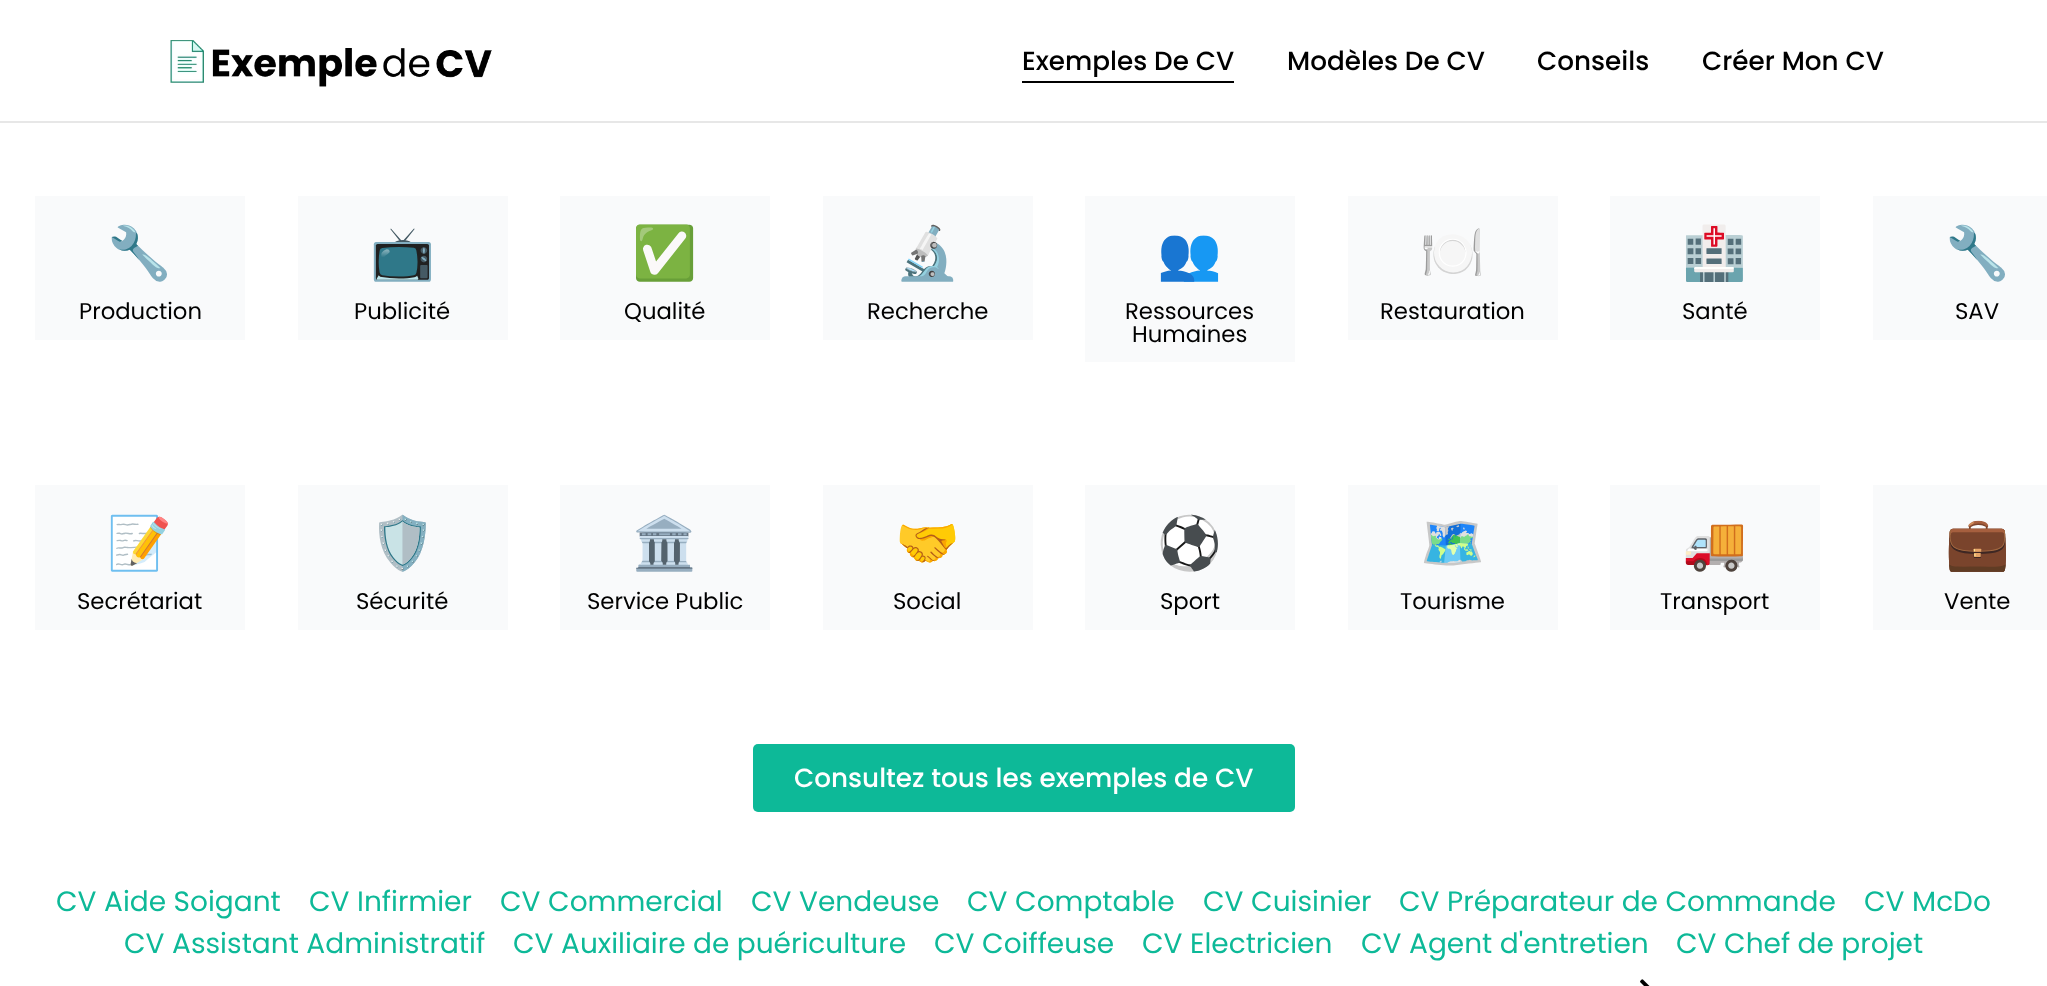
async function draw(canvas) {
	canvas.width = 2047;
	canvas.height = 986;
	const c = canvas.getContext('2d');
	c.miterLimit = 4;
	c.fontKerning = 'normal';
	async function loadImage(src) {
		const img = new Image();
		img.src = src;
		await img.decode();
		return img;
	}

	c.fillStyle = '#fff';
	c.fillRect(0, 0, 2047, 986);
	c.fillStyle = '#e7e7e7';
	c.fillRect(0, 121, 2047, 2);
	c.drawImage(await loadImage('img1.png'), 170, 40, 322, 47);
	c.font = '500 26.25px Poppins';
	c.fillStyle = '#000';
	c.fillText('Exemples De CV', 1022, 70);
	c.fillRect(1022, 81, 212, 2);
	for (const [text, x, y] of [
		['Modèles De CV', 1287, 70],
		['Conseils', 1537, 70],
		['Créer Mon CV', 1702, 70],
	]) {
		c.fillText(text, x, y);
	}
	c.fillStyle = '#f9fafb';
	c.fillRect(35, 196, 210, 144);
	c.font = '52px Noto Color Emoji';
	c.fillStyle = '#7a7a7a';
	c.fillText('🔧', 107, 271);
	c.font = '22.75px Poppins';
	c.fillStyle = '#000';
	c.fillText('Production', 79, 319);
	c.fillStyle = '#f9fafb';
	c.fillRect(298, 196, 210, 144);
	c.font = '52px Noto Color Emoji';
	c.fillStyle = '#7a7a7a';
	c.fillText('📺', 370, 271);
	c.font = '22.75px Poppins';
	c.fillStyle = '#000';
	c.fillText('Publicité', 354, 319);
	c.fillStyle = '#f9fafb';
	c.fillRect(560, 196, 210, 144);
	c.font = '52px Noto Color Emoji';
	c.fillStyle = '#7a7a7a';
	c.fillText('✅', 632, 271);
	c.font = '22.75px Poppins';
	c.fillStyle = '#000';
	c.fillText('Qualité', 624, 319);
	c.fillStyle = '#f9fafb';
	c.fillRect(823, 196, 210, 144);
	c.font = '52px Noto Color Emoji';
	c.fillStyle = '#7a7a7a';
	c.fillText('🔬', 895, 271);
	c.font = '22.75px Poppins';
	c.fillStyle = '#000';
	c.fillText('Recherche', 867, 319);
	c.fillStyle = '#f9fafb';
	c.fillRect(1085, 196, 210, 166);
	c.font = '52px Noto Color Emoji';
	c.fillStyle = '#7a7a7a';
	c.fillText('👥', 1157, 271);
	c.font = '22.75px Poppins';
	c.fillStyle = '#000';
	c.fillText('Ressources', 1125, 319);
	c.fillText('Humaines', 1132, 342);
	c.fillStyle = '#f9fafb';
	c.fillRect(1348, 196, 210, 144);
	c.font = '52px Noto Color Emoji';
	c.fillStyle = '#7a7a7a';
	c.fillText('🍽️', 1420, 271);
	c.font = '22.75px Poppins';
	c.fillStyle = '#000';
	c.fillText('Restauration', 1380, 319);
	c.fillStyle = '#f9fafb';
	c.fillRect(1610, 196, 210, 144);
	c.font = '52px Noto Color Emoji';
	c.fillStyle = '#7a7a7a';
	c.fillText('🏥', 1682, 271);
	c.font = '22.75px Poppins';
	c.fillStyle = '#000';
	c.fillText('Santé', 1682, 319);
	c.fillStyle = '#f9fafb';
	c.fillRect(1873, 196, 174, 144);
	c.font = '52px Noto Color Emoji';
	c.fillStyle = '#7a7a7a';
	c.fillText('🔧', 1945, 271);
	c.font = '22.75px Poppins';
	c.fillStyle = '#000';
	c.fillText('SAV', 1955, 319);
	c.fillStyle = '#f9fafb';
	c.fillRect(35, 485, 210, 145);
	c.font = '52px Noto Color Emoji';
	c.fillStyle = '#7a7a7a';
	c.fillText('📝', 107, 561);
	c.font = '22.75px Poppins';
	c.fillStyle = '#000';
	c.fillText('Secrétariat', 77, 609);
	c.fillStyle = '#f9fafb';
	c.fillRect(298, 485, 210, 145);
	c.font = '52px Noto Color Emoji';
	c.fillStyle = '#7a7a7a';
	c.fillText('🛡️', 370, 561);
	c.font = '22.75px Poppins';
	c.fillStyle = '#000';
	c.fillText('Sécurité', 356, 609);
	c.fillStyle = '#f9fafb';
	c.fillRect(560, 485, 210, 145);
	c.font = '52px Noto Color Emoji';
	c.fillStyle = '#7a7a7a';
	c.fillText('🏛️', 632, 561);
	c.font = '22.75px Poppins';
	c.fillStyle = '#000';
	c.fillText('Service Public', 587, 609);
	c.fillStyle = '#f9fafb';
	c.fillRect(823, 485, 210, 145);
	c.font = '52px Noto Color Emoji';
	c.fillStyle = '#7a7a7a';
	c.fillText('🤝', 895, 561);
	c.font = '22.75px Poppins';
	c.fillStyle = '#000';
	c.fillText('Social', 893, 609);
	c.fillStyle = '#f9fafb';
	c.fillRect(1085, 485, 210, 145);
	c.font = '52px Noto Color Emoji';
	c.fillStyle = '#7a7a7a';
	c.fillText('⚽', 1157, 561);
	c.font = '22.75px Poppins';
	c.fillStyle = '#000';
	c.fillText('Sport', 1160, 609);
	c.fillStyle = '#f9fafb';
	c.fillRect(1348, 485, 210, 145);
	c.font = '52px Noto Color Emoji';
	c.fillStyle = '#7a7a7a';
	c.fillText('🗺️', 1420, 561);
	c.font = '22.75px Poppins';
	c.fillStyle = '#000';
	c.fillText('Tourisme', 1400, 609);
	c.fillStyle = '#f9fafb';
	c.fillRect(1610, 485, 210, 145);
	c.font = '52px Noto Color Emoji';
	c.fillStyle = '#7a7a7a';
	c.fillText('🚚', 1682, 561);
	c.font = '22.75px Poppins';
	c.fillStyle = '#000';
	c.fillText('Transport', 1660, 609);
	c.fillStyle = '#f9fafb';
	c.fillRect(1873, 485, 174, 145);
	c.font = '52px Noto Color Emoji';
	c.fillStyle = '#7a7a7a';
	c.fillText('💼', 1945, 561);
	c.font = '22.75px Poppins';
	c.fillStyle = '#000';
	c.fillText('Vente', 1944, 609);
	c.fillStyle = '#0db998';
	c.beginPath();
	c.roundRect(753, 744, 542, 68, 5);
	c.fill();
	c.font = '500 26.25px Poppins';
	c.fillStyle = '#fff';
	c.fillText('Consultez tous les exemples de CV', 794, 787);
	c.font = '28px Poppins';
	c.fillStyle = '#0db998';
	for (const [text, x, y] of [
		['CV Aide Soigant', 56, 911],
		['CV Infirmier', 309, 911],
		['CV Commercial', 500, 911],
		['CV Vendeuse', 751, 911],
		['CV Comptable', 967, 911],
		['CV Cuisinier', 1203, 911],
		['CV Préparateur de Commande', 1399, 911],
		['CV McDo', 1864, 911],
		['CV Assistant Administratif', 124, 953],
		['CV Auxiliaire de puériculture', 513, 953],
		['CV Coiffeuse', 934, 953],
		['CV Electricien', 1142, 953],
		['CV Agent d\'entretien', 1361, 953],
		['CV Chef de projet', 1676, 953],
	]) {
		c.fillText(text, x, y);
	}
	c.drawImage(await loadImage('img2.png'), 1640, 979, 10, 7);
}

draw(document.querySelector('canvas'));
